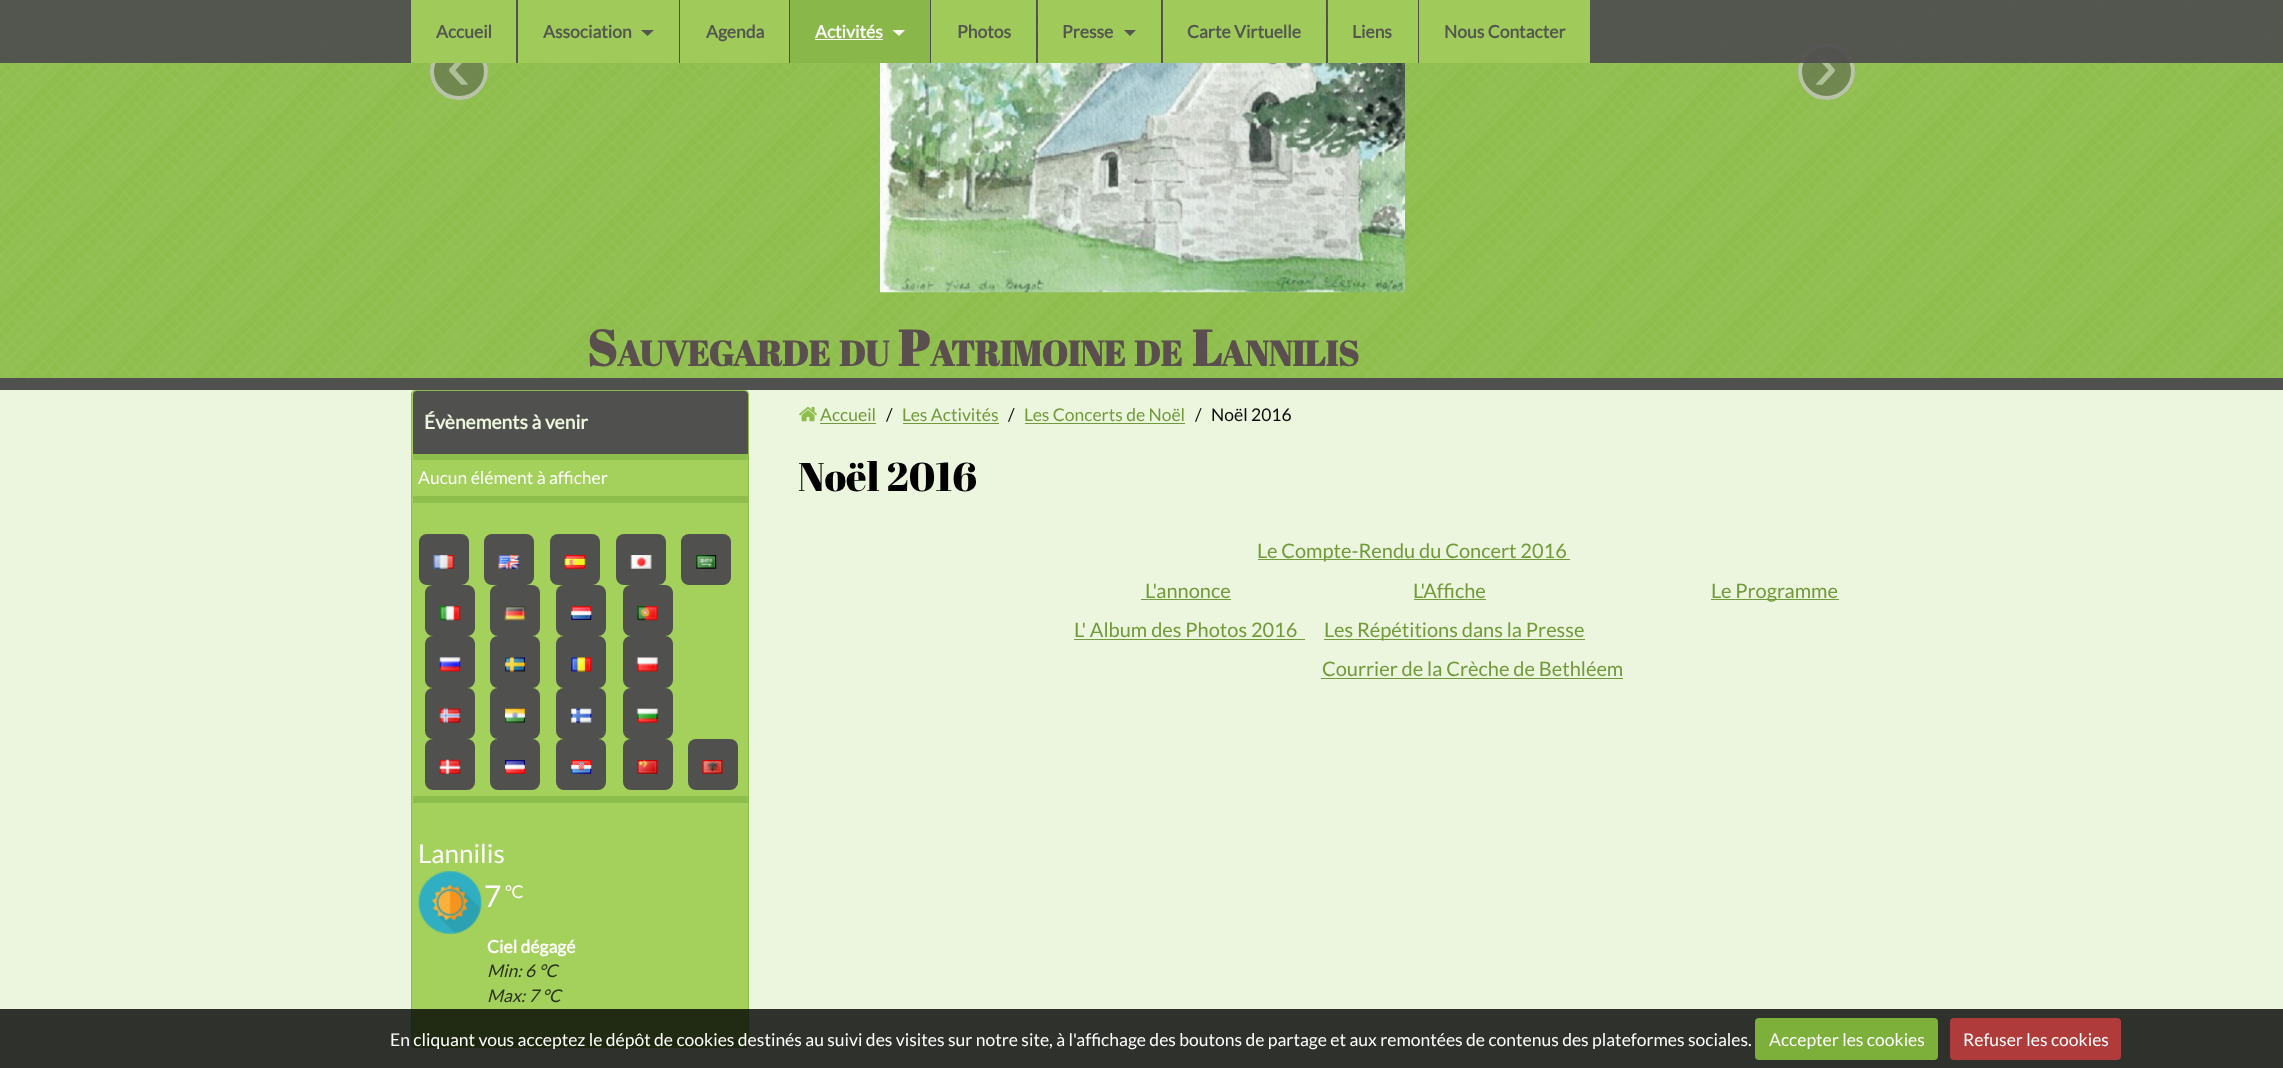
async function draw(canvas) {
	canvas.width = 2283;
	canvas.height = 1068;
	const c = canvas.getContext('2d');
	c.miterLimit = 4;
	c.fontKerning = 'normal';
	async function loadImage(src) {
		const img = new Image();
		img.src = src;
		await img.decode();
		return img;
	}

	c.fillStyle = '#ecf5dd';
	c.fillRect(0, 0, 2283, 1068);
	c.fillStyle = '#8dbd4a';
	c.fillRect(0, 0, 2283, 378);
	c.drawImage(await loadImage('img1.png'), 0, 0, 2283, 378);
	c.fillStyle = '#50504f80';
	c.beginPath();
	c.roundRect(430, 43, 58, 57, 28.5);
	c.fill();
	c.beginPath();
	c.roundRect(432, 45, 54, 53, 26.5);
	c.strokeStyle = '#ffffff80';
	c.lineWidth = 4;
	c.stroke();
	c.font = '75px Liberation Sans';
	c.fillStyle = '#afbf97';
	c.fillText('‹', 446, 90);
	c.drawImage(await loadImage('img2.png'), 880, 0, 525, 293);
	c.fillStyle = '#50504f80';
	c.beginPath();
	c.arc(1826.5, 71.5, 28.5, 0, 2 * Math.PI);
	c.fill();
	c.beginPath();
	c.arc(1826.5, 71.5, 26.5, 0, 2 * Math.PI);
	c.stroke();
	c.fillStyle = '#afbf97';
	c.fillText('›', 1813, 90);
	for (const [x, y, w, h, color] of [
		[0, 0, 2283, 63, '#50504ff2'],
		[516, 0, 1, 63, '#50504f'],
		[411, 0, 105, 63, '#a4d15bf2'],
	]) {
		c.fillStyle = color;
		c.fillRect(x, y, w, h);
	}
	c.font = 'bold 17.5px Lato';
	c.fillStyle = '#545650';
	c.fillText('Accueil', 436, 38);
	c.fillStyle = '#50504f';
	c.fillRect(679, 0, 1, 63);
	c.fillStyle = '#a0cb5a';
	c.fillRect(518, 0, 161, 63);
	c.fillStyle = '#545650';
	c.fillText('Association', 543, 38);
	c.beginPath();
	c.moveTo(641, 30);
	c.lineTo(654, 30);
	c.lineTo(647.5, 36);
	c.closePath();
	c.fill();
	c.fillStyle = '#50504f';
	c.fillRect(789, 0, 1, 63);
	c.fillStyle = '#a0cb5a';
	c.fillRect(680, 0, 109, 63);
	c.fillStyle = '#545650';
	c.fillText('Agenda', 706, 38);
	c.fillStyle = '#50504ff2';
	c.fillRect(930, 0, 1, 63);
	c.fillStyle = '#8dbd4af2';
	c.fillRect(790, 0, 140, 63);
	c.fillStyle = '#f9fbf6';
	c.fillText('Activités', 815, 38);
	c.fillRect(815, 39, 68, 1);
	c.beginPath();
	c.moveTo(892.5, 30);
	c.lineTo(905, 30);
	c.lineTo(899, 36);
	c.closePath();
	c.fill();
	c.fillStyle = '#50504ff2';
	c.fillRect(1036, 0, 1, 63);
	c.fillStyle = '#a4d15bf2';
	c.fillRect(931, 0, 105, 63);
	c.fillStyle = '#545650';
	c.fillText('Photos', 957, 38);
	c.fillStyle = '#50504ff2';
	c.fillRect(1161, 0, 1, 63);
	c.fillStyle = '#a4d15bf2';
	c.fillRect(1038, 0, 123, 63);
	c.fillStyle = '#545650';
	c.fillText('Presse', 1062, 38);
	c.beginPath();
	c.moveTo(1124, 30);
	c.lineTo(1136, 30);
	c.lineTo(1130, 36);
	c.closePath();
	c.fill();
	c.fillStyle = '#50504ff2';
	c.fillRect(1326, 0, 1, 63);
	c.fillStyle = '#a4d15bf2';
	c.fillRect(1163, 0, 163, 63);
	c.fillStyle = '#545650';
	c.fillText('Carte Virtuelle', 1187, 38);
	c.fillStyle = '#50504f';
	c.fillRect(1418, 0, 1, 63);
	c.fillStyle = '#a4d15bf2';
	c.fillRect(1328, 0, 90, 63);
	c.fillStyle = '#545650';
	c.fillText('Liens', 1352, 38);
	c.fillStyle = '#a0cb5a';
	c.fillRect(1419, 0, 171, 63);
	c.fillStyle = '#545650';
	c.fillText('Nous Contacter', 1444, 38);
	c.fillStyle = '#50504f';
	c.fillRect(0, 378, 2283, 12);
	c.font = 'bold 50px Abril Fatface';
	c.fillStyle = '#5a4e4e';
	c.fillText('S', 587, 366);
	c.font = 'bold 35px Abril Fatface';
	c.fillText('AUVEGARDE', 617, 366);
	c.fillText('DU', 839, 366);
	c.font = 'bold 50px Abril Fatface';
	c.fillText('P', 898, 366);
	c.font = 'bold 35px Abril Fatface';
	c.fillText('ATRIMOINE', 930, 366);
	c.fillText('DE', 1134, 366);
	c.font = 'bold 50px Abril Fatface';
	c.fillText('L', 1192, 366);
	c.font = 'bold 35px Abril Fatface';
	c.fillText('ANNILIS', 1221, 366);
	c.fillStyle = '#a4d15b';
	c.beginPath();
	c.roundRect(411.5, 390.5, 337, 657, 3.5);
	c.fill();
	c.strokeStyle = '#8dbd4a';
	c.lineWidth = 1;
	c.stroke();
	c.fillStyle = '#50504f';
	c.beginPath();
	c.roundRect(413, 391, 335, 69, [4, 4, 0, 0]);
	c.fill();
	c.fillStyle = '#8dbd4a';
	c.fillRect(413, 454, 335, 6);
	c.font = 'bold 19.25px Lato';
	c.fillStyle = '#ecf5dd';
	c.fillText('Évènements à venir', 424, 429);
	c.fillStyle = '#8dbd4a';
	c.fillRect(413, 496, 335, 7);
	c.font = '17.5px Lato';
	c.fillStyle = '#fff';
	c.fillText('Aucun élément à afficher', 418, 484);
	c.fillStyle = '#8dbd4a';
	c.fillRect(413, 796, 335, 7);
	c.fillStyle = '#50504f';
	c.beginPath();
	c.roundRect(419, 534, 50, 51, 8);
	c.fill();
	c.drawImage(await loadImage('img3.png'), 433, 555, 22, 14);
	c.beginPath();
	c.roundRect(484, 534, 50, 51, 8);
	c.fill();
	c.drawImage(await loadImage('img4.png'), 498, 555, 22, 14);
	c.beginPath();
	c.roundRect(550, 534, 50, 51, 8);
	c.fill();
	c.drawImage(await loadImage('img5.png'), 564, 555, 22, 14);
	c.beginPath();
	c.roundRect(616, 534, 50, 51, 8);
	c.fill();
	c.drawImage(await loadImage('img6.png'), 630, 555, 22, 14);
	c.beginPath();
	c.roundRect(681, 534, 50, 51, 8);
	c.fill();
	c.drawImage(await loadImage('img7.png'), 696, 555, 21, 14);
	c.beginPath();
	c.roundRect(425, 585, 50, 51, 8);
	c.fill();
	c.drawImage(await loadImage('img8.png'), 439, 606, 22, 15);
	c.beginPath();
	c.roundRect(490, 585, 50, 51, 8);
	c.fill();
	c.drawImage(await loadImage('img9.png'), 504, 606, 22, 15);
	c.beginPath();
	c.roundRect(556, 585, 50, 51, 8);
	c.fill();
	c.drawImage(await loadImage('img10.png'), 571, 606, 21, 14);
	c.beginPath();
	c.roundRect(623, 585, 50, 51, 8);
	c.fill();
	c.drawImage(await loadImage('img11.png'), 636, 606, 22, 15);
	c.beginPath();
	c.roundRect(425, 636, 50, 52, 8);
	c.fill();
	c.drawImage(await loadImage('img12.png'), 439, 657, 22, 15);
	c.beginPath();
	c.roundRect(490, 636, 50, 52, 8);
	c.fill();
	c.drawImage(await loadImage('img13.png'), 505, 657, 20, 15);
	c.beginPath();
	c.roundRect(556, 636, 50, 52, 8);
	c.fill();
	c.drawImage(await loadImage('img14.png'), 571, 657, 21, 15);
	c.beginPath();
	c.roundRect(623, 636, 50, 52, 8);
	c.fill();
	c.drawImage(await loadImage('img15.png'), 636, 657, 22, 15);
	c.beginPath();
	c.roundRect(425, 688, 50, 51, 8);
	c.fill();
	c.drawImage(await loadImage('img16.png'), 439, 708, 22, 15);
	c.beginPath();
	c.roundRect(490, 688, 50, 51, 8);
	c.fill();
	c.drawImage(await loadImage('img17.png'), 505, 708, 20, 15);
	c.beginPath();
	c.roundRect(556, 688, 50, 51, 8);
	c.fill();
	c.drawImage(await loadImage('img18.png'), 571, 708, 21, 15);
	c.beginPath();
	c.roundRect(623, 688, 50, 51, 8);
	c.fill();
	c.drawImage(await loadImage('img19.png'), 636, 708, 22, 15);
	c.beginPath();
	c.roundRect(425, 739, 50, 51, 8);
	c.fill();
	c.drawImage(await loadImage('img20.png'), 439, 759, 22, 15);
	c.beginPath();
	c.roundRect(490, 739, 50, 51, 8);
	c.fill();
	c.drawImage(await loadImage('img21.png'), 505, 760, 20, 14);
	c.beginPath();
	c.roundRect(556, 739, 50, 51, 8);
	c.fill();
	c.drawImage(await loadImage('img22.png'), 571, 760, 21, 14);
	c.beginPath();
	c.roundRect(623, 739, 50, 51, 8);
	c.fill();
	c.drawImage(await loadImage('img23.png'), 637, 760, 22, 14);
	c.beginPath();
	c.roundRect(688, 739, 50, 51, 8);
	c.fill();
	c.drawImage(await loadImage('img24.png'), 702, 760, 22, 14);
	c.fillStyle = '#8dbd4a';
	c.fillRect(415, 1040, 331, 6);
	c.font = '26px Lato';
	c.fillStyle = '#fff';
	c.fillText('Lannilis', 418, 863);
	c.drawImage(await loadImage('img25.png'), 418, 871, 64, 63);
	c.font = '30px Lato';
	c.fillText('7', 484, 907);
	c.font = '17.5px Lato';
	c.fillText('°C', 505, 898);
	c.font = 'bold 17.5px Lato';
	c.fillText('Ciel dégagé', 487, 953);
	c.font = 'italic 17.5px Lato';
	c.fillStyle = '#2a331b';
	c.fillText('Min: 6 °C', 487, 977);
	c.fillText('Max: 7 °C', 487, 1002);
	c.drawImage(await loadImage('img26.png'), 799, 406, 18, 16);
	c.font = '17.5px Lato';
	c.fillStyle = '#729a3b';
	c.fillText('Accueil', 820, 421);
	c.fillRect(820, 423, 56, 1);
	c.fillStyle = '#0b0b0b';
	c.fillText('/', 886, 421);
	c.fillStyle = '#729a3b';
	c.fillText('Les Activités', 902, 421);
	c.fillRect(903, 423, 96, 1);
	c.fillStyle = '#0b0b0b';
	c.fillText('/', 1008, 421);
	c.fillStyle = '#729a3b';
	c.fillText('Les Concerts de Noël', 1024, 421);
	c.fillRect(1025, 423, 160, 1);
	c.fillStyle = '#0b0b0b';
	c.fillText('/', 1195, 421);
	c.fillText('Noël 2016', 1211, 421);
	c.font = '40px Abril Fatface';
	c.fillStyle = '#000';
	c.fillText('Noël 2016', 798, 491);
	c.fillStyle = '#729a3b';
	c.fillRect(1258, 559, 312, 1);
	c.font = '20px Lato';
	c.fillText('Le Compte-Rendu du Concert 2016', 1257, 558);
	c.fillText('L\'annonce', 1145, 598);
	c.fillRect(1141, 599, 90, 1);
	c.fillText('L\'Affiche', 1413, 598);
	c.fillRect(1414, 599, 72, 1);
	c.fillRect(1711, 599, 128, 1);
	c.fillText('Le Programme', 1711, 598);
	c.fillText('L\' Album des Photos 2016', 1074, 637);
	c.fillRect(1074, 639, 231, 1);
	c.fillRect(1324, 639, 261, 1);
	c.fillText('Les Répétitions dans la Presse', 1324, 637);
	c.fillText('Courrier de la Crèche de Bethléem', 1322, 676);
	c.fillRect(1321, 678, 302, 1);
	c.fillStyle = '#000000cc';
	c.fillRect(0, 1009, 2283, 59);
	c.font = '17.5px Lato';
	c.fillStyle = '#fff';
	c.fillText('En cliquant vous acceptez le dépôt de cookies destinés au suivi des visites sur notre site, à l\'affichage des boutons de partage et aux remontées de contenus des plateformes sociales.', 390, 1046);
	c.fillStyle = '#7daf3b';
	c.beginPath();
	c.roundRect(1755, 1018, 183, 42, 4);
	c.fill();
	c.fillStyle = '#fff';
	c.fillText('Accepter les cookies', 1769, 1046);
	c.fillStyle = '#af3b3b';
	c.beginPath();
	c.roundRect(1950, 1018, 171, 42, 4);
	c.fill();
	c.fillStyle = '#fff';
	c.fillText('Refuser les cookies', 1963, 1046);
}

draw(document.querySelector('canvas'));
